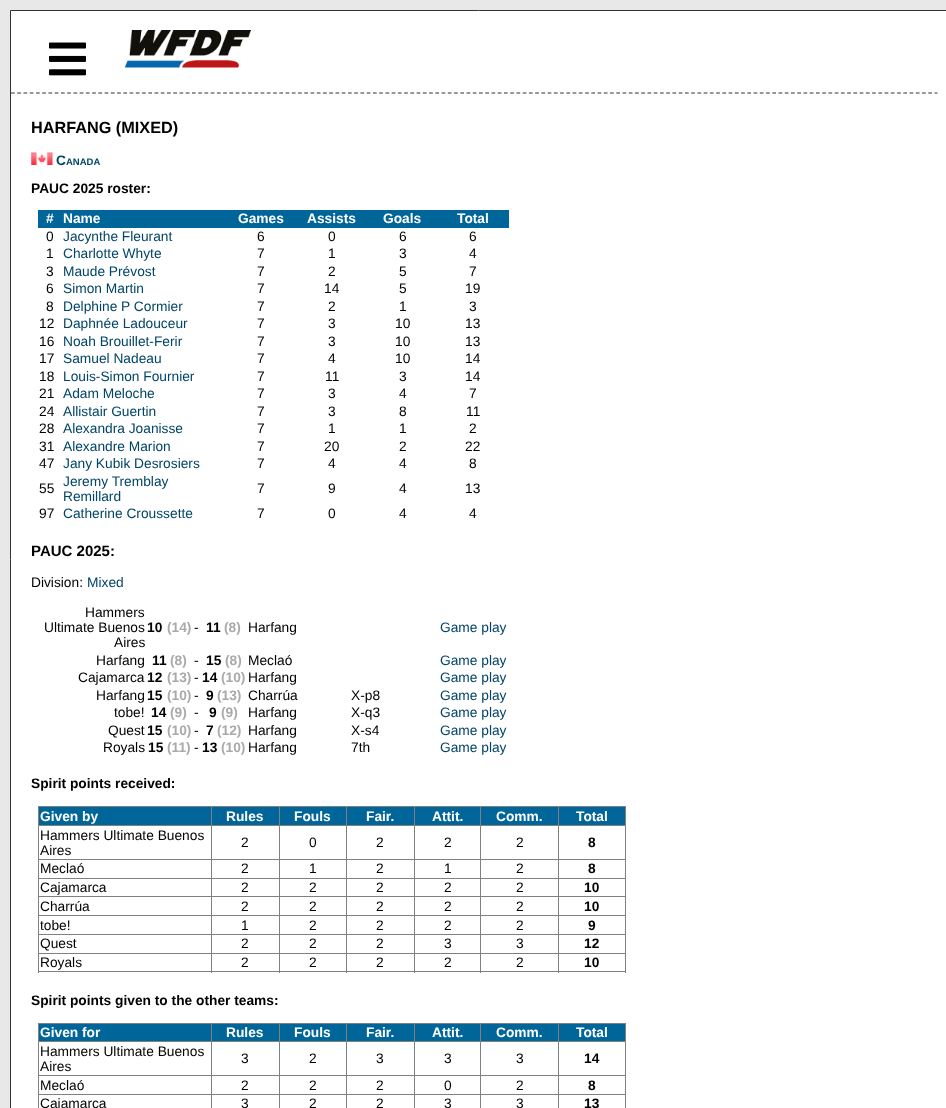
async function draw(canvas) {
	canvas.width = 946;
	canvas.height = 1108;
	const c = canvas.getContext('2d');
	c.miterLimit = 4;
	c.fontKerning = 'normal';
	async function loadImage(src) {
		const img = new Image();
		img.src = src;
		await img.decode();
		return img;
	}

	c.fillStyle = '#e8e8e8';
	c.fillRect(0, 0, 946, 1108);
	c.fillStyle = '#fff';
	c.beginPath();
	c.rect(10.5, 10.5, 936, 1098);
	c.fill();
	c.strokeStyle = '#333';
	c.stroke();
	c.beginPath();
	c.moveTo(11, 93);
	c.lineTo(937.5, 93);
	c.lineWidth = 1.2;
	c.setLineDash([3.75, 2.49]);
	c.stroke();
	c.drawImage(await loadImage('img1.png'), 49, 42, 37, 34);
	c.drawImage(await loadImage('img2.png'), 124, 30, 127, 38);
	c.font = 'bold 16.25px Liberation Sans';
	c.fillStyle = '#000';
	c.fillText('HARFANG (MIXED)', 31, 133);
	c.drawImage(await loadImage('img3.png'), 31, 152, 22, 13);
	c.font = 'bold 13.75px Liberation Sans';
	c.fillStyle = '#046';
	c.fillText('C', 56, 165);
	c.font = 'bold 9.5px Liberation Sans';
	c.fillText('ANADA', 66, 165);
	c.font = 'bold 13.75px Liberation Sans';
	c.fillStyle = '#000';
	c.fillText('PAUC 2025 roster:', 31, 193);
	c.fillStyle = '#069';
	c.fillRect(38, 210, 471, 18);
	c.fillStyle = '#fff';
	for (const [text, x, y] of [
		['#', 46, 223],
		['Name', 63, 223],
		['Games', 238, 223],
		['Assists', 307, 223],
		['Goals', 383, 223],
		['Total', 457, 223],
	]) {
		c.fillText(text, x, y);
	}
	c.font = '13.75px Liberation Sans';
	c.fillStyle = '#000';
	c.fillText('0', 46, 241);
	c.fillStyle = '#046';
	c.fillText('Jacynthe Fleurant', 63, 241);
	c.fillStyle = '#000';
	for (const [text, x, y] of [
		['6', 257, 241],
		['0', 328, 241],
		['6', 399, 241],
		['6', 469, 241],
		['1', 46, 258],
	]) {
		c.fillText(text, x, y);
	}
	c.fillStyle = '#046';
	c.fillText('Charlotte Whyte', 63, 258);
	c.fillStyle = '#000';
	for (const [text, x, y] of [
		['7', 257, 258],
		['1', 328, 258],
		['3', 399, 258],
		['4', 469, 258],
		['3', 46, 276],
	]) {
		c.fillText(text, x, y);
	}
	c.fillStyle = '#046';
	c.fillText('Maude Prévost', 63, 276);
	c.fillStyle = '#000';
	for (const [text, x, y] of [
		['7', 257, 276],
		['2', 328, 276],
		['5', 399, 276],
		['7', 469, 276],
		['6', 46, 293],
	]) {
		c.fillText(text, x, y);
	}
	c.fillStyle = '#046';
	c.fillText('Simon Martin', 63, 293);
	c.fillStyle = '#000';
	for (const [text, x, y] of [
		['7', 257, 293],
		['14', 324, 293],
		['5', 399, 293],
		['19', 465, 293],
		['8', 46, 311],
	]) {
		c.fillText(text, x, y);
	}
	c.fillStyle = '#046';
	c.fillText('Delphine P Cormier', 63, 311);
	c.fillStyle = '#000';
	for (const [text, x, y] of [
		['7', 257, 311],
		['2', 328, 311],
		['1', 399, 311],
		['3', 469, 311],
		['12', 39, 328],
	]) {
		c.fillText(text, x, y);
	}
	c.fillStyle = '#046';
	c.fillText('Daphnée Ladouceur', 63, 328);
	c.fillStyle = '#000';
	for (const [text, x, y] of [
		['7', 257, 328],
		['3', 328, 328],
		['10', 395, 328],
		['13', 465, 328],
		['16', 39, 346],
	]) {
		c.fillText(text, x, y);
	}
	c.fillStyle = '#046';
	c.fillText('Noah Brouillet-Ferir', 63, 346);
	c.fillStyle = '#000';
	for (const [text, x, y] of [
		['7', 257, 346],
		['3', 328, 346],
		['10', 395, 346],
		['13', 465, 346],
		['17', 39, 363],
	]) {
		c.fillText(text, x, y);
	}
	c.fillStyle = '#046';
	c.fillText('Samuel Nadeau', 63, 363);
	c.fillStyle = '#000';
	for (const [text, x, y] of [
		['7', 257, 363],
		['4', 328, 363],
		['10', 395, 363],
		['14', 465, 363],
		['18', 39, 381],
	]) {
		c.fillText(text, x, y);
	}
	c.fillStyle = '#046';
	c.fillText('Louis-Simon Fournier', 63, 381);
	c.fillStyle = '#000';
	for (const [text, x, y] of [
		['7', 257, 381],
		['11', 325, 381],
		['3', 399, 381],
		['14', 465, 381],
		['21', 39, 398],
	]) {
		c.fillText(text, x, y);
	}
	c.fillStyle = '#046';
	c.fillText('Adam Meloche', 63, 398);
	c.fillStyle = '#000';
	for (const [text, x, y] of [
		['7', 257, 398],
		['3', 328, 398],
		['4', 399, 398],
		['7', 469, 398],
		['24', 39, 416],
	]) {
		c.fillText(text, x, y);
	}
	c.fillStyle = '#046';
	c.fillText('Allistair Guertin', 63, 416);
	c.fillStyle = '#000';
	for (const [text, x, y] of [
		['7', 257, 416],
		['3', 328, 416],
		['8', 399, 416],
		['11', 466, 416],
		['28', 39, 433],
	]) {
		c.fillText(text, x, y);
	}
	c.fillStyle = '#046';
	c.fillText('Alexandra Joanisse', 63, 433);
	c.fillStyle = '#000';
	for (const [text, x, y] of [
		['7', 257, 433],
		['1', 328, 433],
		['1', 399, 433],
		['2', 469, 433],
		['31', 39, 451],
	]) {
		c.fillText(text, x, y);
	}
	c.fillStyle = '#046';
	c.fillText('Alexandre Marion', 63, 451);
	c.fillStyle = '#000';
	for (const [text, x, y] of [
		['7', 257, 451],
		['20', 324, 451],
		['2', 399, 451],
		['22', 465, 451],
		['47', 39, 468],
	]) {
		c.fillText(text, x, y);
	}
	c.fillStyle = '#046';
	c.fillText('Jany Kubik Desrosiers', 63, 468);
	c.fillStyle = '#000';
	for (const [text, x, y] of [
		['7', 257, 468],
		['4', 328, 468],
		['4', 399, 468],
		['8', 469, 468],
		['55', 39, 493],
	]) {
		c.fillText(text, x, y);
	}
	c.fillStyle = '#046';
	c.fillText('Jeremy Tremblay', 63, 486);
	c.fillText('Remillard', 63, 501);
	c.fillStyle = '#000';
	for (const [text, x, y] of [
		['7', 257, 493],
		['9', 328, 493],
		['4', 399, 493],
		['13', 465, 493],
		['97', 39, 518],
	]) {
		c.fillText(text, x, y);
	}
	c.fillStyle = '#046';
	c.fillText('Catherine Croussette', 63, 518);
	c.fillStyle = '#000';
	for (const [text, x, y] of [
		['7', 257, 518],
		['0', 328, 518],
		['4', 399, 518],
		['4', 469, 518],
	]) {
		c.fillText(text, x, y);
	}
	c.font = 'bold 15px Liberation Sans';
	c.fillText('PAUC 2025:', 31, 556);
	c.font = '13.75px Liberation Sans';
	c.fillText('Division:', 31, 587);
	c.fillStyle = '#046';
	c.fillText('Mixed', 87, 587);
	c.fillStyle = '#000';
	for (const [text, x, y] of [
		['Hammers', 85, 617],
		['Ultimate Buenos', 44, 632],
		['Aires', 114, 647],
	]) {
		c.fillText(text, x, y);
	}
	c.font = 'bold 13.75px Liberation Sans';
	c.fillText('10', 147, 632);
	c.fillStyle = '#aaa';
	c.fillText('(14)', 167, 632);
	c.font = '13.75px Liberation Sans';
	c.fillStyle = '#000';
	c.fillText('-', 194, 632);
	c.font = 'bold 13.75px Liberation Sans';
	c.fillText('11', 206, 632);
	c.fillStyle = '#aaa';
	c.fillText('(8)', 224, 632);
	c.font = '13.75px Liberation Sans';
	c.fillStyle = '#000';
	c.fillText('Harfang', 248, 632);
	c.fillStyle = '#046';
	c.fillText('Game play', 440, 632);
	c.fillStyle = '#000';
	c.fillText('Harfang', 96, 665);
	c.font = 'bold 13.75px Liberation Sans';
	c.fillText('11', 152, 665);
	c.fillStyle = '#aaa';
	c.fillText('(8)', 170, 665);
	c.font = '13.75px Liberation Sans';
	c.fillStyle = '#000';
	c.fillText('-', 194, 665);
	c.font = 'bold 13.75px Liberation Sans';
	c.fillText('15', 206, 665);
	c.fillStyle = '#aaa';
	c.fillText('(8)', 225, 665);
	c.font = '13.75px Liberation Sans';
	c.fillStyle = '#000';
	c.fillText('Meclaó', 248, 665);
	c.fillStyle = '#046';
	c.fillText('Game play', 440, 665);
	c.fillStyle = '#000';
	c.fillText('Cajamarca', 78, 682);
	c.font = 'bold 13.75px Liberation Sans';
	c.fillText('12', 147, 682);
	c.fillStyle = '#aaa';
	c.fillText('(13)', 167, 682);
	c.font = '13.75px Liberation Sans';
	c.fillStyle = '#000';
	c.fillText('-', 194, 682);
	c.font = 'bold 13.75px Liberation Sans';
	c.fillText('14', 202, 682);
	c.fillStyle = '#aaa';
	c.fillText('(10)', 221, 682);
	c.font = '13.75px Liberation Sans';
	c.fillStyle = '#000';
	c.fillText('Harfang', 248, 682);
	c.fillStyle = '#046';
	c.fillText('Game play', 440, 682);
	c.fillStyle = '#000';
	c.fillText('Harfang', 96, 700);
	c.font = 'bold 13.75px Liberation Sans';
	c.fillText('15', 147, 700);
	c.fillStyle = '#aaa';
	c.fillText('(10)', 167, 700);
	c.font = '13.75px Liberation Sans';
	c.fillStyle = '#000';
	c.fillText('-', 194, 700);
	c.font = 'bold 13.75px Liberation Sans';
	c.fillText('9', 206, 700);
	c.fillStyle = '#aaa';
	c.fillText('(13)', 217, 700);
	c.font = '13.75px Liberation Sans';
	c.fillStyle = '#000';
	c.fillText('Charrúa', 248, 700);
	c.fillText('X-p8', 351, 700);
	c.fillStyle = '#046';
	c.fillText('Game play', 440, 700);
	c.fillStyle = '#000';
	c.fillText('tobe!', 114, 717);
	c.font = 'bold 13.75px Liberation Sans';
	c.fillText('14', 151, 717);
	c.fillStyle = '#aaa';
	c.fillText('(9)', 170, 717);
	c.font = '13.75px Liberation Sans';
	c.fillStyle = '#000';
	c.fillText('-', 194, 717);
	c.font = 'bold 13.75px Liberation Sans';
	c.fillText('9', 209, 717);
	c.fillStyle = '#aaa';
	c.fillText('(9)', 221, 717);
	c.font = '13.75px Liberation Sans';
	c.fillStyle = '#000';
	c.fillText('Harfang', 248, 717);
	c.fillText('X-q3', 351, 717);
	c.fillStyle = '#046';
	c.fillText('Game play', 440, 717);
	c.fillStyle = '#000';
	c.fillText('Quest', 108, 735);
	c.font = 'bold 13.75px Liberation Sans';
	c.fillText('15', 147, 735);
	c.fillStyle = '#aaa';
	c.fillText('(10)', 167, 735);
	c.font = '13.75px Liberation Sans';
	c.fillStyle = '#000';
	c.fillText('-', 194, 735);
	c.font = 'bold 13.75px Liberation Sans';
	c.fillText('7', 206, 735);
	c.fillStyle = '#aaa';
	c.fillText('(12)', 217, 735);
	c.font = '13.75px Liberation Sans';
	c.fillStyle = '#000';
	c.fillText('Harfang', 248, 735);
	c.fillText('X-s4', 351, 735);
	c.fillStyle = '#046';
	c.fillText('Game play', 440, 735);
	c.fillStyle = '#000';
	c.fillText('Royals', 103, 752);
	c.font = 'bold 13.75px Liberation Sans';
	c.fillText('15', 148, 752);
	c.fillStyle = '#aaa';
	c.fillText('(11)', 167, 752);
	c.font = '13.75px Liberation Sans';
	c.fillStyle = '#000';
	c.fillText('-', 194, 752);
	c.font = 'bold 13.75px Liberation Sans';
	c.fillText('13', 202, 752);
	c.fillStyle = '#aaa';
	c.fillText('(10)', 221, 752);
	c.font = '13.75px Liberation Sans';
	c.fillStyle = '#000';
	c.fillText('Harfang', 248, 752);
	c.fillText('7th', 351, 752);
	c.fillStyle = '#046';
	c.fillText('Game play', 440, 752);
	c.font = 'bold 13.75px Liberation Sans';
	c.fillStyle = '#000';
	c.fillText('Spirit points received:', 31, 788);
	for (const [x, y, w, h, color] of [
		[38, 806, 588, 1, '#808080'],
		[625, 806, 1, 167, '#808080'],
		[38, 971, 588, 1, '#808080'],
		[38, 806, 1, 167, '#808080'],
		[39, 807, 172, 18, '#069'],
	]) {
		c.fillStyle = color;
		c.fillRect(x, y, w, h);
	}
	c.fillStyle = '#fff';
	c.fillText('Given by', 40, 821);
	for (const [x, y, w, h, color] of [
		[212, 807, 67, 18, '#069'],
		[558, 825, 68, 1, '#808080'],
		[558, 859, 68, 1, '#808080'],
		[558, 878, 68, 1, '#808080'],
		[558, 896, 68, 1, '#808080'],
		[558, 915, 68, 1, '#808080'],
		[558, 934, 68, 1, '#808080'],
		[558, 953, 68, 1, '#808080'],
		[558, 953, 1, 20, '#808080'],
		[480, 953, 79, 1, '#808080'],
		[558, 934, 1, 20, '#808080'],
		[480, 934, 79, 1, '#808080'],
		[558, 915, 1, 20, '#808080'],
		[480, 915, 79, 1, '#808080'],
		[558, 896, 1, 20, '#808080'],
		[480, 896, 79, 1, '#808080'],
		[558, 878, 1, 20, '#808080'],
		[480, 878, 79, 1, '#808080'],
		[558, 859, 1, 20, '#808080'],
		[480, 859, 79, 1, '#808080'],
		[558, 825, 1, 35, '#808080'],
		[480, 825, 79, 1, '#808080'],
		[480, 953, 1, 20, '#808080'],
		[414, 953, 67, 1, '#808080'],
		[480, 934, 1, 20, '#808080'],
		[414, 934, 67, 1, '#808080'],
		[480, 915, 1, 20, '#808080'],
		[414, 915, 67, 1, '#808080'],
		[480, 896, 1, 20, '#808080'],
		[414, 896, 67, 1, '#808080'],
		[480, 878, 1, 20, '#808080'],
		[414, 878, 67, 1, '#808080'],
		[480, 859, 1, 20, '#808080'],
		[414, 859, 67, 1, '#808080'],
		[480, 825, 1, 35, '#808080'],
		[414, 825, 67, 1, '#808080'],
		[414, 953, 1, 20, '#808080'],
		[346, 953, 69, 1, '#808080'],
		[414, 934, 1, 20, '#808080'],
		[346, 934, 69, 1, '#808080'],
		[414, 915, 1, 20, '#808080'],
		[346, 915, 69, 1, '#808080'],
		[414, 896, 1, 20, '#808080'],
		[346, 896, 69, 1, '#808080'],
		[414, 878, 1, 20, '#808080'],
		[346, 878, 69, 1, '#808080'],
		[414, 859, 1, 20, '#808080'],
		[346, 859, 69, 1, '#808080'],
		[414, 825, 1, 35, '#808080'],
		[346, 825, 69, 1, '#808080'],
		[346, 953, 1, 20, '#808080'],
		[279, 953, 69, 1, '#808080'],
		[346, 934, 1, 20, '#808080'],
		[279, 934, 69, 1, '#808080'],
		[346, 915, 1, 20, '#808080'],
		[279, 915, 69, 1, '#808080'],
		[346, 896, 1, 20, '#808080'],
		[279, 896, 69, 1, '#808080'],
		[346, 878, 1, 20, '#808080'],
		[279, 878, 69, 1, '#808080'],
		[346, 859, 1, 20, '#808080'],
		[279, 859, 69, 1, '#808080'],
		[346, 825, 1, 35, '#808080'],
		[279, 825, 69, 1, '#808080'],
		[279, 953, 1, 20, '#808080'],
		[211, 953, 69, 1, '#808080'],
		[279, 934, 1, 20, '#808080'],
		[211, 934, 69, 1, '#808080'],
		[279, 915, 1, 20, '#808080'],
		[211, 915, 69, 1, '#808080'],
		[279, 896, 1, 20, '#808080'],
		[211, 896, 69, 1, '#808080'],
		[279, 878, 1, 20, '#808080'],
		[211, 878, 69, 1, '#808080'],
		[279, 859, 1, 20, '#808080'],
		[211, 859, 69, 1, '#808080'],
		[279, 825, 1, 35, '#808080'],
		[211, 825, 69, 1, '#808080'],
		[211, 953, 1, 20, '#808080'],
		[38, 953, 175, 1, '#808080'],
		[211, 934, 1, 20, '#808080'],
		[38, 934, 175, 1, '#808080'],
		[211, 915, 1, 20, '#808080'],
		[38, 915, 175, 1, '#808080'],
		[211, 896, 1, 20, '#808080'],
		[38, 896, 175, 1, '#808080'],
		[211, 878, 1, 20, '#808080'],
		[38, 878, 175, 1, '#808080'],
		[211, 859, 1, 20, '#808080'],
		[38, 859, 175, 1, '#808080'],
		[211, 825, 1, 35, '#808080'],
		[38, 825, 175, 1, '#808080'],
		[211, 806, 1, 20, '#808080'],
	]) {
		c.fillStyle = color;
		c.fillRect(x, y, w, h);
	}
	c.fillStyle = '#fff';
	c.fillText('Rules', 226, 821);
	c.fillStyle = '#069';
	c.fillRect(280, 807, 66, 18);
	c.fillStyle = '#808080';
	c.fillRect(279, 806, 1, 20);
	c.fillStyle = '#fff';
	c.fillText('Fouls', 294, 821);
	c.fillStyle = '#069';
	c.fillRect(347, 807, 67, 18);
	c.fillStyle = '#808080';
	c.fillRect(346, 806, 1, 20);
	c.fillStyle = '#fff';
	c.fillText('Fair.', 366, 821);
	c.fillStyle = '#069';
	c.fillRect(415, 807, 65, 18);
	c.fillStyle = '#808080';
	c.fillRect(414, 806, 1, 20);
	c.fillStyle = '#fff';
	c.fillText('Attit.', 432, 821);
	c.fillStyle = '#069';
	c.fillRect(481, 807, 77, 18);
	c.fillStyle = '#808080';
	c.fillRect(480, 806, 1, 20);
	c.fillStyle = '#fff';
	c.fillText('Comm.', 496, 821);
	c.fillStyle = '#069';
	c.fillRect(559, 807, 66, 18);
	c.fillStyle = '#808080';
	c.fillRect(558, 806, 1, 20);
	c.fillStyle = '#fff';
	c.fillText('Total', 576, 821);
	c.font = '13.75px Liberation Sans';
	c.fillStyle = '#000';
	for (const [text, x, y] of [
		['Hammers Ultimate Buenos', 40, 840],
		['Aires', 40, 855],
		['2', 241, 847],
		['0', 309, 847],
		['2', 376, 847],
		['2', 444, 847],
		['2', 516, 847],
	]) {
		c.fillText(text, x, y);
	}
	c.font = 'bold 13.75px Liberation Sans';
	c.fillText('8', 588, 847);
	c.font = '13.75px Liberation Sans';
	for (const [text, x, y] of [
		['Meclaó', 40, 873],
		['2', 241, 873],
		['1', 309, 873],
		['2', 376, 873],
		['1', 444, 873],
		['2', 516, 873],
	]) {
		c.fillText(text, x, y);
	}
	c.font = 'bold 13.75px Liberation Sans';
	c.fillText('8', 588, 873);
	c.font = '13.75px Liberation Sans';
	for (const [text, x, y] of [
		['Cajamarca', 40, 892],
		['2', 241, 892],
		['2', 309, 892],
		['2', 376, 892],
		['2', 444, 892],
		['2', 516, 892],
	]) {
		c.fillText(text, x, y);
	}
	c.font = 'bold 13.75px Liberation Sans';
	c.fillText('10', 584, 892);
	c.font = '13.75px Liberation Sans';
	for (const [text, x, y] of [
		['Charrúa', 40, 911],
		['2', 241, 911],
		['2', 309, 911],
		['2', 376, 911],
		['2', 444, 911],
		['2', 516, 911],
	]) {
		c.fillText(text, x, y);
	}
	c.font = 'bold 13.75px Liberation Sans';
	c.fillText('10', 584, 911);
	c.font = '13.75px Liberation Sans';
	for (const [text, x, y] of [
		['tobe!', 40, 930],
		['1', 241, 930],
		['2', 309, 930],
		['2', 376, 930],
		['2', 444, 930],
		['2', 516, 930],
	]) {
		c.fillText(text, x, y);
	}
	c.font = 'bold 13.75px Liberation Sans';
	c.fillText('9', 588, 930);
	c.font = '13.75px Liberation Sans';
	for (const [text, x, y] of [
		['Quest', 40, 948],
		['2', 241, 948],
		['2', 309, 948],
		['2', 376, 948],
		['3', 444, 948],
		['3', 516, 948],
	]) {
		c.fillText(text, x, y);
	}
	c.font = 'bold 13.75px Liberation Sans';
	c.fillText('12', 584, 948);
	c.font = '13.75px Liberation Sans';
	for (const [text, x, y] of [
		['Royals', 40, 967],
		['2', 241, 967],
		['2', 309, 967],
		['2', 376, 967],
		['2', 444, 967],
		['2', 516, 967],
	]) {
		c.fillText(text, x, y);
	}
	c.font = 'bold 13.75px Liberation Sans';
	c.fillText('10', 584, 967);
	c.fillText('Spirit points given to the other teams:', 31, 1005);
	for (const [x, y, w, h, color] of [
		[38, 1023, 588, 1, '#808080'],
		[625, 1023, 1, 85, '#808080'],
		[38, 1023, 1, 85, '#808080'],
		[39, 1024, 172, 17, '#069'],
	]) {
		c.fillStyle = color;
		c.fillRect(x, y, w, h);
	}
	c.fillStyle = '#fff';
	c.fillText('Given for', 40, 1037);
	for (const [x, y, w, h, color] of [
		[212, 1024, 67, 17, '#069'],
		[558, 1041, 68, 1, '#808080'],
		[558, 1075, 68, 1, '#808080'],
		[558, 1094, 68, 1, '#808080'],
		[558, 1094, 1, 14, '#808080'],
		[480, 1094, 79, 1, '#808080'],
		[558, 1075, 1, 20, '#808080'],
		[480, 1075, 79, 1, '#808080'],
		[558, 1041, 1, 35, '#808080'],
		[480, 1041, 79, 1, '#808080'],
		[480, 1094, 1, 14, '#808080'],
		[414, 1094, 67, 1, '#808080'],
		[480, 1075, 1, 20, '#808080'],
		[414, 1075, 67, 1, '#808080'],
		[480, 1041, 1, 35, '#808080'],
		[414, 1041, 67, 1, '#808080'],
		[414, 1094, 1, 14, '#808080'],
		[346, 1094, 69, 1, '#808080'],
		[414, 1075, 1, 20, '#808080'],
		[346, 1075, 69, 1, '#808080'],
		[414, 1041, 1, 35, '#808080'],
		[346, 1041, 69, 1, '#808080'],
		[346, 1094, 1, 14, '#808080'],
		[279, 1094, 69, 1, '#808080'],
		[346, 1075, 1, 20, '#808080'],
		[279, 1075, 69, 1, '#808080'],
		[346, 1041, 1, 35, '#808080'],
		[279, 1041, 69, 1, '#808080'],
		[279, 1094, 1, 14, '#808080'],
		[211, 1094, 69, 1, '#808080'],
		[279, 1075, 1, 20, '#808080'],
		[211, 1075, 69, 1, '#808080'],
		[279, 1041, 1, 35, '#808080'],
		[211, 1041, 69, 1, '#808080'],
		[211, 1094, 1, 14, '#808080'],
		[38, 1094, 175, 1, '#808080'],
		[211, 1075, 1, 20, '#808080'],
		[38, 1075, 175, 1, '#808080'],
		[211, 1041, 1, 35, '#808080'],
		[38, 1041, 175, 1, '#808080'],
		[211, 1023, 1, 20, '#808080'],
	]) {
		c.fillStyle = color;
		c.fillRect(x, y, w, h);
	}
	c.fillStyle = '#fff';
	c.fillText('Rules', 226, 1037);
	c.fillStyle = '#069';
	c.fillRect(280, 1024, 66, 17);
	c.fillStyle = '#808080';
	c.fillRect(279, 1023, 1, 20);
	c.fillStyle = '#fff';
	c.fillText('Fouls', 294, 1037);
	c.fillStyle = '#069';
	c.fillRect(347, 1024, 67, 17);
	c.fillStyle = '#808080';
	c.fillRect(346, 1023, 1, 20);
	c.fillStyle = '#fff';
	c.fillText('Fair.', 366, 1037);
	c.fillStyle = '#069';
	c.fillRect(415, 1024, 65, 17);
	c.fillStyle = '#808080';
	c.fillRect(414, 1023, 1, 20);
	c.fillStyle = '#fff';
	c.fillText('Attit.', 432, 1037);
	c.fillStyle = '#069';
	c.fillRect(481, 1024, 77, 17);
	c.fillStyle = '#808080';
	c.fillRect(480, 1023, 1, 20);
	c.fillStyle = '#fff';
	c.fillText('Comm.', 496, 1037);
	c.fillStyle = '#069';
	c.fillRect(559, 1024, 66, 17);
	c.fillStyle = '#808080';
	c.fillRect(558, 1023, 1, 20);
	c.fillStyle = '#fff';
	c.fillText('Total', 576, 1037);
	c.font = '13.75px Liberation Sans';
	c.fillStyle = '#000';
	for (const [text, x, y] of [
		['Hammers Ultimate Buenos', 40, 1056],
		['Aires', 40, 1071],
		['3', 241, 1063],
		['2', 309, 1063],
		['3', 376, 1063],
		['3', 444, 1063],
		['3', 516, 1063],
	]) {
		c.fillText(text, x, y);
	}
	c.font = 'bold 13.75px Liberation Sans';
	c.fillText('14', 584, 1063);
	c.font = '13.75px Liberation Sans';
	for (const [text, x, y] of [
		['Meclaó', 40, 1090],
		['2', 241, 1090],
		['2', 309, 1090],
		['2', 376, 1090],
		['0', 444, 1090],
		['2', 516, 1090],
	]) {
		c.fillText(text, x, y);
	}
	c.font = 'bold 13.75px Liberation Sans';
	c.fillText('8', 588, 1090);
	c.font = '13.75px Liberation Sans';
	for (const [text, x, y] of [
		['Cajamarca', 40, 1108],
		['3', 241, 1108],
		['2', 309, 1108],
		['2', 376, 1108],
		['3', 444, 1108],
		['3', 516, 1108],
	]) {
		c.fillText(text, x, y);
	}
	c.font = 'bold 13.75px Liberation Sans';
	c.fillText('13', 584, 1108);
}

draw(document.querySelector('canvas'));
